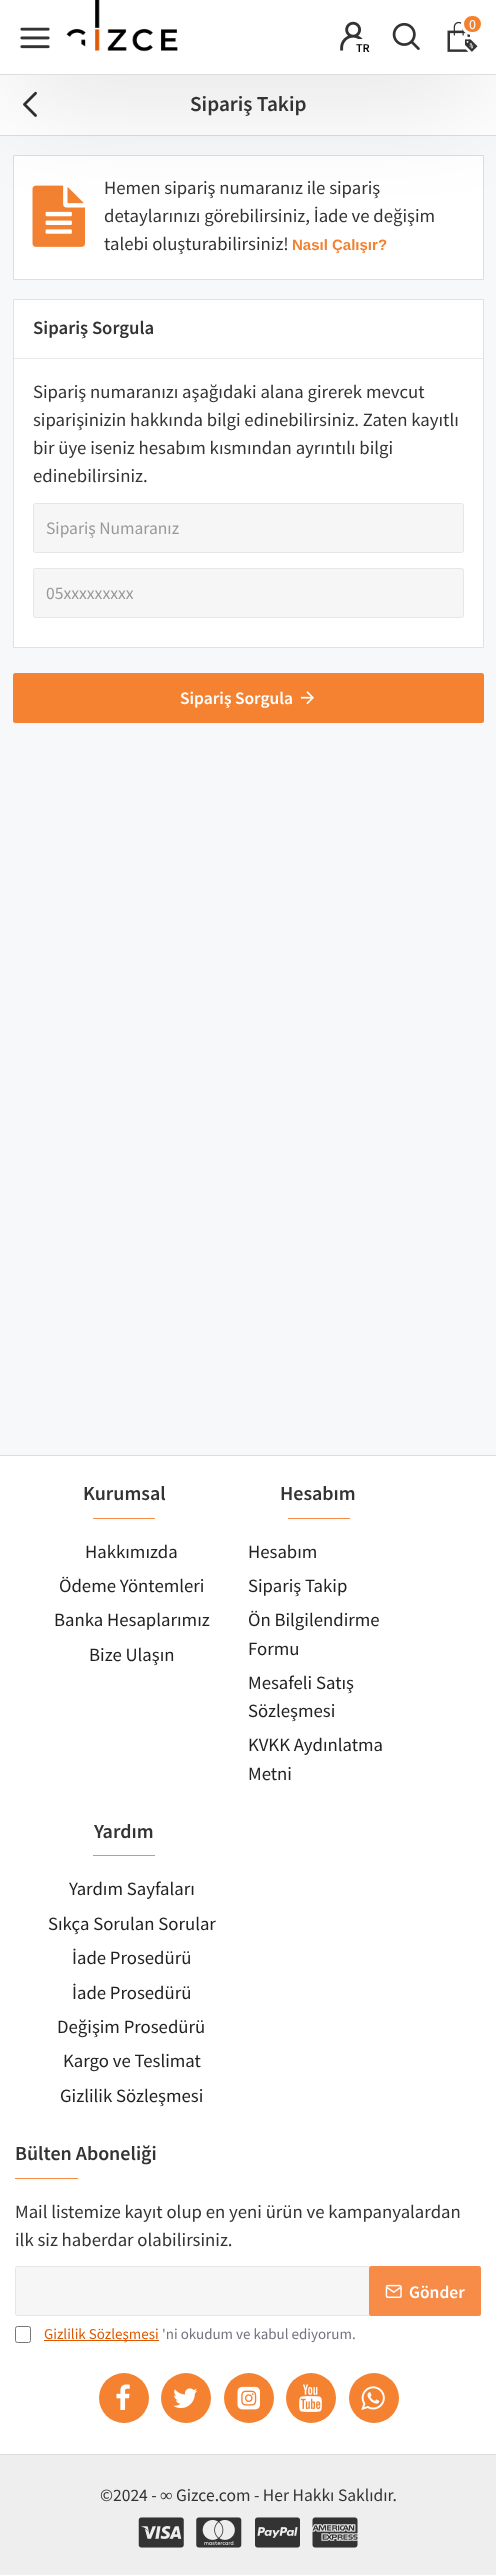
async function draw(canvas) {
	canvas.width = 496;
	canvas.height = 2575;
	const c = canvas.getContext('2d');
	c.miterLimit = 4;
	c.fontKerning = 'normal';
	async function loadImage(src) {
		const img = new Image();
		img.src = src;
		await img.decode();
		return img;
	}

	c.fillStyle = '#f7f8fa';
	c.fillRect(0, 0, 496, 2575);
	c.fillStyle = '#fff';
	c.fillRect(0, 75, 496, 60);
	c.fillStyle = '#ddd';
	c.fillRect(0, 135, 496, 1);
	c.drawImage(await loadImage('img6.png'), 23, 91, 14, 26);
	c.fillStyle = '#fff';
	c.beginPath();
	c.rect(13.5, 155.5, 470, 124);
	c.fill();
	c.strokeStyle = '#ddd';
	c.stroke();
	c.drawImage(await loadImage('img7.png'), 32, 185, 53, 62);
	c.fillStyle = '#00000033';
	c.filter = 'blur(56px)';
	c.beginPath();
	c.rect(13, 31, 471, 50);
	c.fill();
	c.filter = 'none';
	c.fillStyle = '#fff';
	c.fillRect(0, 0, 496, 74);
	c.fillStyle = '#ddd';
	c.fillRect(0, 74, 496, 1);
	c.drawImage(await loadImage('img1.png'), 66, 0, 112, 52);
	c.drawImage(await loadImage('img2.png'), 20, 27, 30, 22);
	c.drawImage(await loadImage('img3.png'), 340, 21, 23, 30);
	c.fillStyle = '#fff';
	c.fillRect(358, 39, 5, 7);
	c.font = '600 12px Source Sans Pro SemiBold';
	c.fillStyle = '#000';
	c.fillText('TR', 356, 52);
	c.drawImage(await loadImage('img4.png'), 392, 22, 28, 28);
	c.drawImage(await loadImage('img5.png'), 447, 21, 31, 31);
	c.fillStyle = '#f2822f';
	c.beginPath();
	c.roundRect(462.5, 14.5, 20, 19, 9.5);
	c.fill();
	c.strokeStyle = '#fff';
	c.lineWidth = 3;
	c.stroke();
	c.font = '14px Source Sans Pro';
	c.fillStyle = '#fff';
	c.fillText('0', 469, 29);
	c.font = '600 21.25px Source Sans Pro SemiBold';
	c.fillStyle = '#333';
	c.fillText('Sipariş Takip', 190, 111);
	c.font = '18.75px Source Sans Pro';
	for (const [text, x, y] of [
		['Hemen sipariş numaranız ile sipariş', 104, 194],
		['detaylarınızı görebilirsiniz, İade ve değişim', 104, 222],
		['talebi oluşturabilirsiniz!', 104, 250],
	]) {
		c.fillText(text, x, y);
	}
	c.font = 'bold 15px Liberation Sans';
	c.fillStyle = '#f18232';
	c.fillText('Nasıl Çalışır?', 292, 250);
	c.fillStyle = '#fff';
	c.beginPath();
	c.rect(13.5, 299.5, 470, 348);
	c.fill();
	c.strokeStyle = '#e1e1e1';
	c.lineWidth = 1;
	c.stroke();
	c.fillStyle = '#e9e9e9';
	c.fillRect(14, 358, 469, 1);
	c.font = '600 18.75px Source Sans Pro SemiBold';
	c.fillStyle = '#333';
	c.fillText('Sipariş Sorgula', 33, 334);
	c.font = '18.75px Source Sans Pro';
	for (const [text, x, y] of [
		['Sipariş numaranızı aşağıdaki alana girerek mevcut', 33, 398],
		['siparişinizin hakkında bilgi edinebilirsiniz. Zaten kayıtlı', 33, 426],
		['bir üye iseniz hesabım kısmından ayrıntılı bilgi', 33, 454],
		['edinebilirsiniz.', 33, 482],
	]) {
		c.fillText(text, x, y);
	}
	c.fillStyle = '#f6f6f6';
	c.beginPath();
	c.roundRect(33.5, 503.5, 430, 49, 2);
	c.fill();
	c.strokeStyle = '#e6e6e6';
	c.stroke();
	c.font = '17.5px Source Sans Pro';
	c.fillStyle = '#999';
	c.fillText('Sipariş Numaranız', 46, 534);
	c.fillStyle = '#f6f6f6';
	c.beginPath();
	c.roundRect(33.5, 568.5, 430, 49, 2);
	c.fill();
	c.stroke();
	c.fillStyle = '#999';
	c.fillText('05xxxxxxxxx', 46, 599);
	c.fillStyle = '#f48231';
	c.beginPath();
	c.roundRect(13, 673, 471, 50, 2.5);
	c.fill();
	c.font = '600 17.5px Source Sans Pro SemiBold';
	c.fillStyle = '#fff';
	c.fillText('Sipariş Sorgula', 180, 704);
	c.drawImage(await loadImage('img8.png'), 300, 691, 14, 14);
	c.fillRect(0, 1456, 496, 998);
	c.fillStyle = '#ddd';
	c.fillRect(0, 1455, 496, 1);
	c.font = '600 20px Source Sans Pro SemiBold';
	c.fillStyle = '#333';
	c.fillText('Kurumsal', 83, 1500);
	c.fillStyle = '#f78c49';
	c.fillRect(93, 1518, 62, 1);
	c.font = '18.75px Source Sans Pro';
	c.fillStyle = '#222';
	for (const [text, x, y] of [
		['Hakkımızda', 85, 1558],
		['Ödeme Yöntemleri', 59, 1592],
		['Banka Hesaplarımız', 54, 1626],
		['Bize Ulaşın', 89, 1661],
	]) {
		c.fillText(text, x, y);
	}
	c.font = '600 20px Source Sans Pro SemiBold';
	c.fillStyle = '#333';
	c.fillText('Hesabım', 280, 1500);
	c.fillStyle = '#f78c49';
	c.fillRect(288, 1518, 62, 1);
	c.font = '18.75px Source Sans Pro';
	c.fillStyle = '#222';
	for (const [text, x, y] of [
		['Hesabım', 248, 1558],
		['Sipariş Takip', 248, 1592],
		['Ön Bilgilendirme', 248, 1626],
		['Formu', 248, 1655],
		['Mesafeli Satış', 248, 1689],
		['Sözleşmesi', 248, 1717],
		['KVKK Aydınlatma', 248, 1751],
		['Metni', 248, 1780],
	]) {
		c.fillText(text, x, y);
	}
	c.font = '600 20px Source Sans Pro SemiBold';
	c.fillStyle = '#333';
	c.fillText('Yardım', 94, 1838);
	c.fillStyle = '#f78c49';
	c.fillRect(93, 1855, 62, 1);
	c.font = '18.75px Source Sans Pro';
	c.fillStyle = '#222';
	for (const [text, x, y] of [
		['Yardım Sayfaları', 69, 1895],
		['Sıkça Sorulan Sorular', 48, 1930],
		['İade Prosedürü', 72, 1964],
		['İade Prosedürü', 72, 1999],
		['Değişim Prosedürü', 57, 2033],
		['Kargo ve Teslimat', 63, 2067],
		['Gizlilik Sözleşmesi', 60, 2102],
	]) {
		c.fillText(text, x, y);
	}
	c.font = '600 20px Source Sans Pro SemiBold';
	c.fillStyle = '#333';
	c.fillText('Bülten Aboneliği', 15, 2160);
	c.fillStyle = '#f78c49';
	c.fillRect(15, 2178, 63, 1);
	c.font = '18.75px Source Sans Pro';
	c.fillStyle = '#333';
	c.fillText('Mail listemize kayıt olup en yeni ürün ve kampanyalardan', 15, 2218);
	c.fillText('ilk siz haberdar olabilirsiniz.', 15, 2246);
	c.fillStyle = '#f6f6f6';
	c.beginPath();
	c.roundRect(15.5, 2266.5, 465, 49, 2);
	c.fill();
	c.stroke();
	c.fillStyle = '#f78c49';
	c.beginPath();
	c.roundRect(369, 2266, 112, 50, 2.5);
	c.fill();
	c.drawImage(await loadImage('img9.png'), 385, 2284, 17, 14);
	c.font = '600 17.5px Source Sans Pro SemiBold';
	c.fillStyle = '#fff';
	c.fillText('Gönder', 409, 2298);
	c.beginPath();
	c.roundRect(15.5, 2326.5, 15, 16, 2);
	c.strokeStyle = '#767676';
	c.stroke();
	c.fillStyle = '#dc5802';
	c.fillRect(44, 2340, 115, 1);
	c.font = '15px Source Sans Pro';
	c.fillText('Gizlilik Sözleşmesi', 44, 2339);
	c.fillStyle = '#737381';
	c.fillText('\'ni okudum ve kabul ediyorum.', 162, 2339);
	c.fillStyle = '#f48231';
	c.beginPath();
	c.arc(124, 2398, 25, 0, 2 * Math.PI);
	c.fill();
	c.drawImage(await loadImage('img10.png'), 116, 2384, 14, 26);
	c.beginPath();
	c.arc(186, 2398, 25, 0, 2 * Math.PI);
	c.fill();
	c.drawImage(await loadImage('img11.png'), 173, 2388, 25, 20);
	c.beginPath();
	c.arc(249, 2398, 25, 0, 2 * Math.PI);
	c.fill();
	c.drawImage(await loadImage('img12.png'), 237, 2386, 23, 24);
	c.beginPath();
	c.arc(311, 2398, 25, 0, 2 * Math.PI);
	c.fill();
	c.drawImage(await loadImage('img13.png'), 299, 2384, 23, 28);
	c.beginPath();
	c.arc(374, 2398, 25, 0, 2 * Math.PI);
	c.fill();
	c.drawImage(await loadImage('img14.png'), 361, 2386, 24, 24);
	c.fillStyle = '#eee';
	c.fillRect(0, 2455, 496, 120);
	c.fillStyle = '#ddd';
	c.fillRect(0, 2454, 496, 1);
	c.font = '17.5px Source Sans Pro';
	c.fillStyle = '#333';
	c.fillText('©2024 -', 100, 2501);
	c.font = '17.5px Liberation Serif';
	c.fillText('∞', 160, 2501);
	c.font = '17.5px Source Sans Pro';
	c.fillText('Gizce.com - Her Hakkı Saklıdır.', 176, 2501);
	c.drawImage(await loadImage('img15.png'), 138, 2517, 46, 31);
	c.drawImage(await loadImage('img16.png'), 196, 2517, 46, 31);
	c.drawImage(await loadImage('img17.png'), 255, 2517, 45, 31);
	c.drawImage(await loadImage('img18.png'), 312, 2517, 46, 31);
}

draw(document.querySelector('canvas'));
